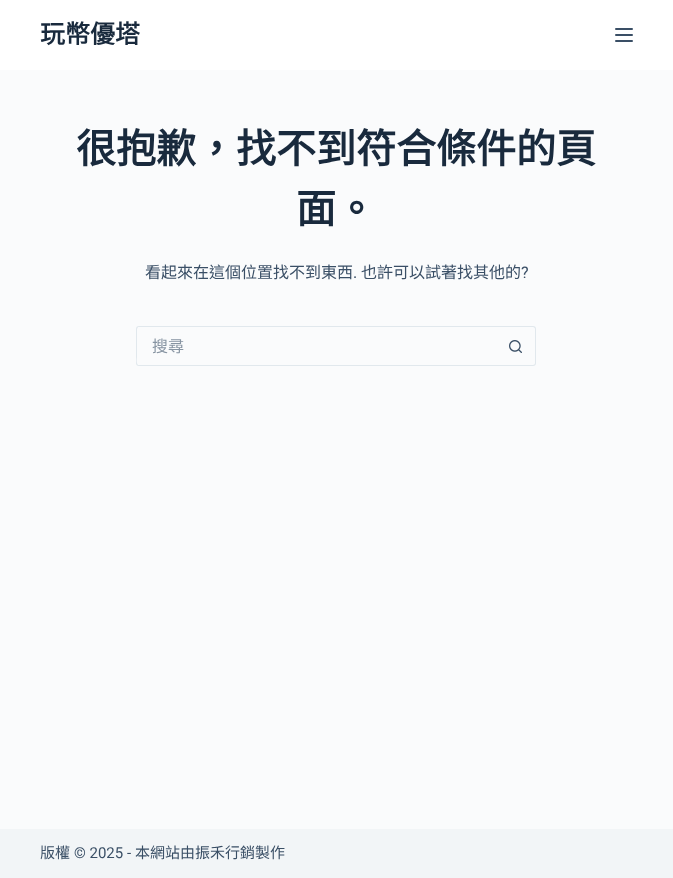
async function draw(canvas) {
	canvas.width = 673;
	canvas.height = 878;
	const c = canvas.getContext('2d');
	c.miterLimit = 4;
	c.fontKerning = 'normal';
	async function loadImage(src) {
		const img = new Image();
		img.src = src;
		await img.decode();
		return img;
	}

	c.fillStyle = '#fafbfc';
	c.fillRect(0, 0, 673, 878);
	c.fillStyle = '#fff';
	c.fillRect(0, 0, 673, 70);
	c.font = 'bold 25px Noto Sans CJK TC';
	c.fillStyle = '#192a3d';
	c.fillText('玩幣優塔', 40, 43);
	c.fillStyle = '#3a4f66';
	c.beginPath();
	c.roundRect(615, 28, 18, 2, 1);
	c.fill();
	c.beginPath();
	c.roundRect(615, 34, 18, 2, 1);
	c.fill();
	c.beginPath();
	c.roundRect(615, 40, 18, 2, 1);
	c.fill();
	c.font = 'bold 40px Noto Sans CJK TC';
	c.fillStyle = '#192a3d';
	c.fillText('很抱歉，找不到符合條件的頁', 76, 163);
	c.fillText('面。', 296, 223);
	c.font = '16px Noto Sans CJK TC';
	c.fillStyle = '#3a4f66';
	c.fillText('看起來在這個位置找不到東西', 145, 278);
	c.font = '16px Roboto';
	c.fillText('.', 353, 278);
	c.font = '16px Noto Sans CJK TC';
	c.fillText('也許可以試著找其他的', 361, 278);
	c.font = '16px Roboto';
	c.fillText('?', 521, 278);
	c.fillStyle = '#e1e8ed';
	c.beginPath();
	c.moveTo(139, 326);
	c.lineTo(496, 326);
	c.lineTo(496, 366);
	c.lineTo(139, 366);
	c.bezierCurveTo(137, 366, 136, 365, 136, 363);
	c.lineTo(136, 329);
	c.bezierCurveTo(136, 327, 137, 326, 139, 326);
	c.closePath();
	c.moveTo(139, 327);
	c.lineTo(496, 327);
	c.lineTo(496, 365);
	c.lineTo(138, 365);
	c.bezierCurveTo(136, 363, 137, 358, 137, 357);
	c.lineTo(137, 329);
	c.lineTo(138, 327);
	c.closePath();
	c.fill('evenodd');
	c.font = '16px Noto Sans CJK TC';
	c.fillStyle = '#8794a2';
	c.fillText('搜尋', 152, 352);
	c.fillStyle = '#e1e8ed';
	c.beginPath();
	c.moveTo(496, 326);
	c.lineTo(533, 326);
	c.bezierCurveTo(535, 326, 536, 327, 536, 329);
	c.lineTo(536, 363);
	c.bezierCurveTo(536, 365, 535, 366, 533, 366);
	c.lineTo(496, 366);
	c.closePath();
	c.moveTo(496, 327);
	c.lineTo(533, 327);
	c.bezierCurveTo(534, 327, 535, 328, 535, 329);
	c.lineTo(535, 363);
	c.bezierCurveTo(535, 364, 534, 365, 533, 365);
	c.lineTo(496, 365);
	c.closePath();
	c.fill('evenodd');
	c.drawImage(await loadImage('img1.png'), 509, 340, 13, 13);
	c.fillStyle = '#f2f5f7';
	c.fillRect(0, 829, 673, 49);
	c.font = '15px Noto Sans CJK TC';
	c.fillStyle = '#3a4f66';
	c.fillText('版權', 40, 858);
	c.font = '15px Roboto';
	c.fillText('© 2025 -', 74, 858);
	c.font = '15px Noto Sans CJK TC';
	c.fillText('本網站由振禾行銷製作', 135, 858);
}

draw(document.querySelector('canvas'));
